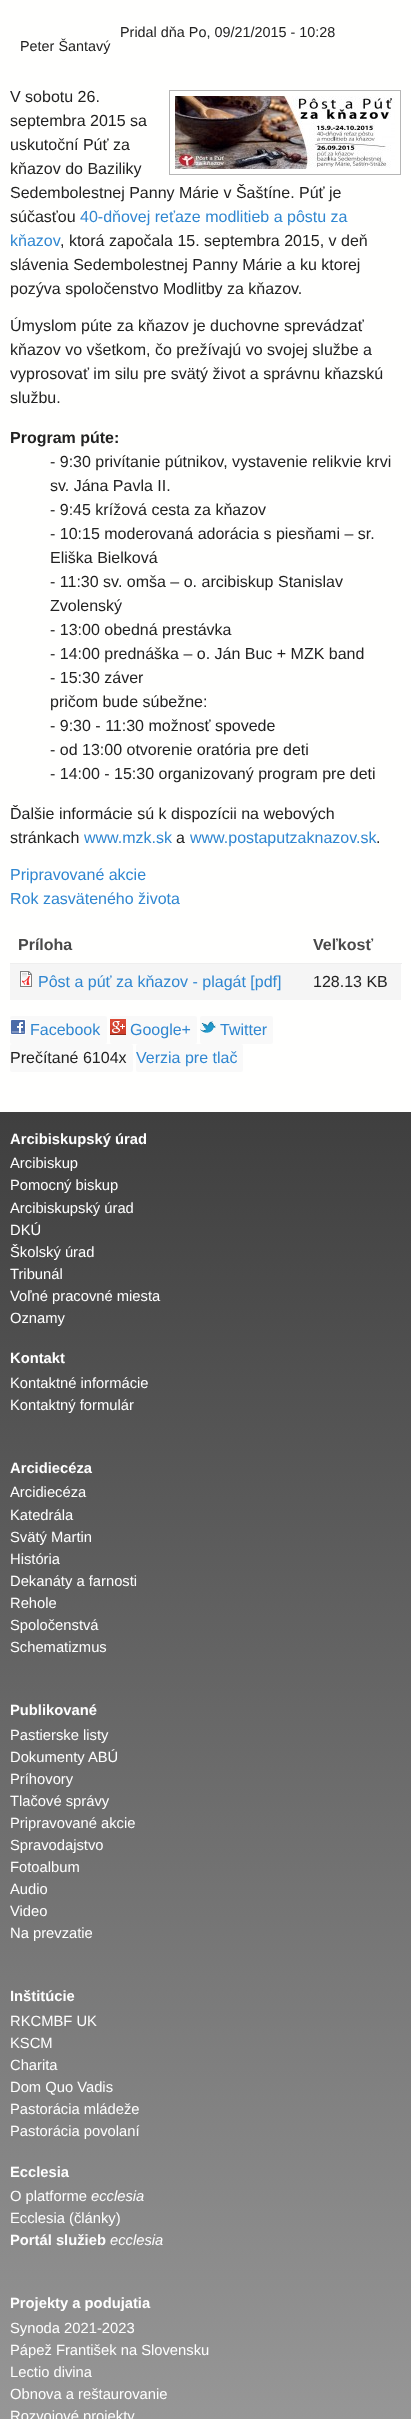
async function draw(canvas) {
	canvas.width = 411;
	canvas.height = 2419;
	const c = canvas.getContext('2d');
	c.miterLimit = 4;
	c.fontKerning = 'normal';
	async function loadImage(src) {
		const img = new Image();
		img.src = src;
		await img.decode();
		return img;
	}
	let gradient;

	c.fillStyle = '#fffffe';
	c.fillRect(0, 0, 411, 2419);
	c.font = '14.4px Liberation Sans';
	c.fillStyle = '#222';
	c.fillText('Pridal dňa Po, 09/21/2015 - 10:28', 120, 37);
	c.fillText('Peter Šantavý', 20, 51);
	c.font = '16px Liberation Sans';
	for (const [text, x, y] of [
		['V sobotu 26.', 10, 102],
		['septembra 2015 sa', 10, 126],
		['uskutoční Púť za', 10, 150],
		['kňazov do Baziliky', 10, 174],
		['Sedembolestnej Panny Márie v Šaštíne. Púť je', 10, 198],
		['súčasťou', 10, 222],
	]) {
		c.fillText(text, x, y);
	}
	c.fillStyle = '#3087d1';
	c.fillText('40-dňovej reťaze modlitieb a pôstu za', 80, 222);
	c.fillText('kňazov', 10, 246);
	c.fillStyle = '#222';
	for (const [text, x, y] of [
		[', ktorá započala 15. septembra 2015, v deň', 60, 246],
		['slávenia Sedembolestnej Panny Márie a ku ktorej', 10, 270],
		['pozýva spoločenstvo Modlitby za kňazov.', 10, 294],
		['Úmyslom púte za kňazov je duchovne sprevádzať', 10, 331],
		['kňazov vo všetkom, čo prežívajú vo svojej službe a', 10, 355],
		['vyprosovať im silu pre svätý život a správnu kňazskú', 10, 379],
		['službu.', 10, 403],
	]) {
		c.fillText(text, x, y);
	}
	c.font = 'bold 16px Liberation Sans';
	c.fillText('Program púte:', 10, 443);
	c.font = '16px Liberation Sans';
	for (const [text, x, y] of [
		['- 9:30 privítanie pútnikov, vystavenie relikvie krvi', 50, 467],
		['sv. Jána Pavla II.', 50, 491],
		['- 9:45 krížová cesta za kňazov', 50, 515],
		['- 10:15 moderovaná adorácia s piesňami – sr.', 50, 539],
		['Eliška Bielková', 50, 563],
		['- 11:30 sv. omša – o. arcibiskup Stanislav', 50, 587],
		['Zvolenský', 50, 611],
		['- 13:00 obedná prestávka', 50, 635],
		['- 14:00 prednáška – o. Ján Buc + MZK band', 50, 659],
		['- 15:30 záver', 50, 683],
		['pričom bude súbežne:', 50, 707],
		['- 9:30 - 11:30 možnosť spovede', 50, 731],
		['- od 13:00 otvorenie oratória pre deti', 50, 755],
		['- 14:00 - 15:30 organizovaný program pre deti', 50, 779],
		['Ďalšie informácie sú k dispozícii na webových', 10, 819],
		['stránkach', 10, 843],
	]) {
		c.fillText(text, x, y);
	}
	c.fillStyle = '#3087d1';
	c.fillText('www.mzk.sk', 84, 843);
	c.fillStyle = '#222';
	c.fillText('a', 176, 843);
	c.fillStyle = '#3087d1';
	c.fillText('www.postaputzaknazov.sk', 190, 843);
	c.fillStyle = '#222';
	c.fillText('.', 376, 843);
	c.strokeStyle = '#b6b6b6';
	c.strokeRect(169.5, 90.5, 231, 84);
	c.drawImage(await loadImage('img1.png'), 175, 96, 220, 73);
	c.fillStyle = '#3087d1';
	c.fillText('Pripravované akcie', 10, 880);
	c.fillText('Rok zasväteného života', 10, 904);
	c.font = 'bold 16px Liberation Sans';
	c.fillStyle = '#494949';
	c.fillText('Príloha', 18, 950);
	c.fillStyle = '#eee';
	c.fillRect(10, 963, 392, 1);
	c.fillStyle = '#494949';
	c.fillText('Veľkosť', 313, 950);
	c.fillStyle = '#f5f5f5';
	c.fillRect(10, 964, 391, 36);
	c.drawImage(await loadImage('img2.png'), 20, 971, 12, 16);
	c.font = '16px Liberation Sans';
	c.fillStyle = '#3087d1';
	c.fillText('Pôst a púť za kňazov - plagát [pdf]', 38, 987);
	c.fillStyle = '#222';
	c.fillText('128.13 KB', 313, 987);
	c.fillStyle = '#f9f9f9';
	c.beginPath();
	c.roundRect(10, 1016, 97, 28, 2);
	c.fill();
	c.drawImage(await loadImage('img3.png'), 10, 1019, 16, 16);
	c.fillStyle = '#3087d1';
	c.fillText('Facebook', 30, 1035);
	c.fillStyle = '#f9f9f9';
	c.beginPath();
	c.roundRect(110, 1016, 87, 28, 2);
	c.fill();
	c.drawImage(await loadImage('img4.png'), 110, 1019, 16, 16);
	c.fillStyle = '#3087d1';
	c.fillText('Google+', 130, 1035);
	c.fillStyle = '#f9f9f9';
	c.beginPath();
	c.roundRect(200, 1016, 73, 28, 2);
	c.fill();
	c.drawImage(await loadImage('img5.png'), 200, 1021, 16, 12);
	c.fillStyle = '#3087d1';
	c.fillText('Twitter', 220, 1035);
	c.fillStyle = '#f9f9f9';
	c.beginPath();
	c.roundRect(10, 1044, 123, 28, 2);
	c.fill();
	c.fillStyle = '#222';
	c.fillText('Prečítané 6104x', 10, 1063);
	c.fillStyle = '#f9f9f9';
	c.beginPath();
	c.roundRect(136, 1044, 107, 28, 2);
	c.fill();
	c.fillStyle = '#3087d1';
	c.fillText('Verzia pre tlač', 136, 1063);
	gradient = c.createLinearGradient(0, 1112, 0, 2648);
	gradient.addColorStop(0, '#3f3f3f');
	gradient.addColorStop(1, '#a6a6a6');
	c.fillStyle = gradient;
	c.fillRect(0, 1112, 411, 1307);
	c.font = 'bold 14.75px Liberation Sans';
	c.fillStyle = '#fff';
	c.fillText('Arcibiskupský úrad', 10, 1144);
	c.font = '14.75px Liberation Sans';
	for (const [text, x, y] of [
		['Arcibiskup', 10, 1168],
		['Pomocný biskup', 10, 1190],
		['Arcibiskupský úrad', 10, 1213],
		['DKÚ', 10, 1235],
		['Školský úrad', 10, 1257],
		['Tribunál', 10, 1279],
		['Voľné pracovné miesta', 10, 1301],
		['Oznamy', 10, 1323],
	]) {
		c.fillText(text, x, y);
	}
	c.font = 'bold 14.75px Liberation Sans';
	c.fillText('Kontakt', 10, 1363);
	c.font = '14.75px Liberation Sans';
	c.fillText('Kontaktné informácie', 10, 1388);
	c.fillText('Kontaktný formulár', 10, 1410);
	c.font = 'bold 14.75px Liberation Sans';
	c.fillText('Arcidiecéza', 10, 1473);
	c.font = '14.75px Liberation Sans';
	for (const [text, x, y] of [
		['Arcidiecéza', 10, 1497],
		['Katedrála', 10, 1520],
		['Svätý Martin', 10, 1542],
		['História', 10, 1564],
		['Dekanáty a farnosti', 10, 1586],
		['Rehole', 10, 1608],
		['Spoločenstvá', 10, 1630],
		['Schematizmus', 10, 1652],
	]) {
		c.fillText(text, x, y);
	}
	c.font = 'bold 14.75px Liberation Sans';
	c.fillText('Publikované', 10, 1715);
	c.font = '14.75px Liberation Sans';
	for (const [text, x, y] of [
		['Pastierske listy', 10, 1740],
		['Dokumenty ABÚ', 10, 1762],
		['Príhovory', 10, 1784],
		['Tlačové správy', 10, 1806],
		['Pripravované akcie', 10, 1828],
		['Spravodajstvo', 10, 1850],
		['Fotoalbum', 10, 1872],
		['Audio', 10, 1894],
		['Video', 10, 1916],
		['Na prevzatie', 10, 1938],
	]) {
		c.fillText(text, x, y);
	}
	c.font = 'bold 14.75px Liberation Sans';
	c.fillText('Inštitúcie', 10, 2001);
	c.font = '14.75px Liberation Sans';
	for (const [text, x, y] of [
		['RKCMBF UK', 10, 2026],
		['KSCM', 10, 2048],
		['Charita', 10, 2070],
		['Dom Quo Vadis', 10, 2092],
		['Pastorácia mládeže', 10, 2114],
		['Pastorácia povolaní', 10, 2136],
	]) {
		c.fillText(text, x, y);
	}
	c.font = 'bold 14.75px Liberation Sans';
	c.fillText('Ecclesia', 10, 2177);
	c.font = '14.75px Liberation Sans';
	c.fillText('O platforme', 10, 2201);
	c.font = 'italic 14.75px Liberation Sans';
	c.fillText('ecclesia', 91, 2201);
	c.font = '14.75px Liberation Sans';
	c.fillText('Ecclesia (články)', 10, 2223);
	c.font = 'bold 14.75px Liberation Sans';
	c.fillText('Portál služieb', 10, 2245);
	c.font = 'italic 14.75px Liberation Sans';
	c.fillText('ecclesia', 110, 2245);
	c.font = 'bold 14.75px Liberation Sans';
	c.fillText('Projekty a podujatia', 10, 2308);
	c.font = '14.75px Liberation Sans';
	for (const [text, x, y] of [
		['Synoda 2021-2023', 10, 2333],
		['Pápež František na Slovensku', 10, 2355],
		['Lectio divina', 10, 2377],
		['Obnova a reštaurovanie', 10, 2399],
		['Rozvojové projekty', 10, 2421],
	]) {
		c.fillText(text, x, y);
	}
}

draw(document.querySelector('canvas'));
